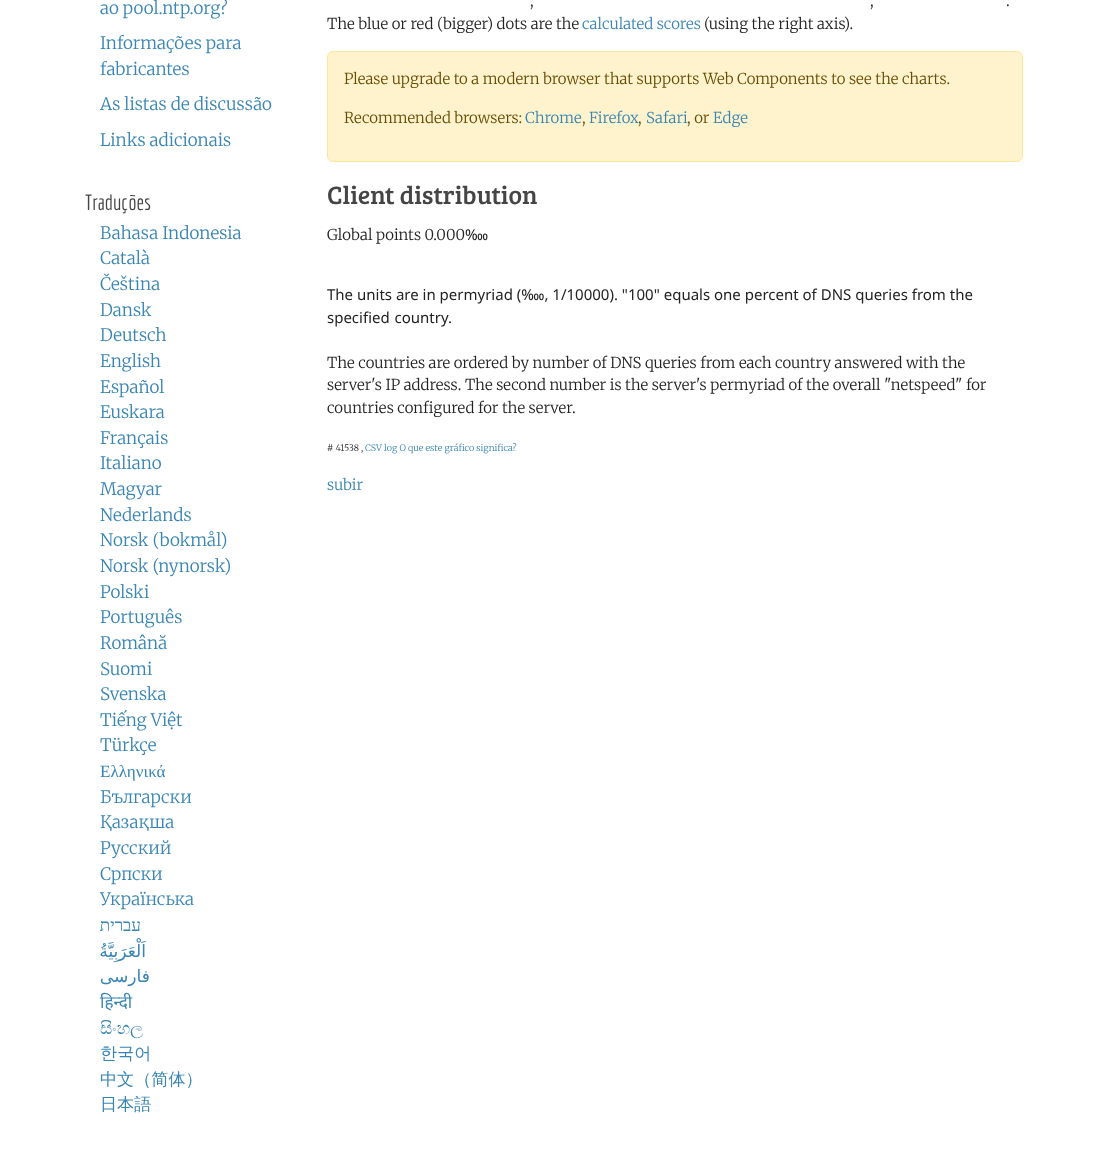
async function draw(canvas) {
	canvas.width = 1109;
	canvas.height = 1150;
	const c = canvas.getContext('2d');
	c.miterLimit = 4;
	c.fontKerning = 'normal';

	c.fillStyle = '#fff';
	c.fillRect(0, 0, 1109, 1150);
	c.font = '300 17.1px Merriweather';
	c.fillStyle = '#3885b4';
	for (const [text, x, y] of [
		['ao pool.ntp.org?', 100, 14],
		['Informações para', 100, 49],
		['fabricantes', 100, 75],
		['As listas de discussão', 100, 110],
		['Links adicionais', 100, 146],
	]) {
		c.fillText(text, x, y);
	}
	c.font = '21.5px Economica';
	c.fillStyle = '#454545';
	c.fillText('Traduções', 85, 210);
	c.font = '300 17.1px Merriweather';
	c.fillStyle = '#3885b4';
	for (const [text, x, y] of [
		['Bahasa Indonesia', 100, 239],
		['Català', 100, 264],
		['Čeština', 100, 290],
		['Dansk', 100, 316],
		['Deutsch', 100, 341],
		['English', 100, 367],
		['Español', 100, 393],
		['Euskara', 100, 418],
		['Français', 100, 444],
		['Italiano', 100, 469],
		['Magyar', 100, 495],
		['Nederlands', 100, 521],
		['Norsk (bokmål)', 100, 546],
		['Norsk (nynorsk)', 100, 572],
		['Polski', 100, 598],
		['Português', 100, 623],
		['Română', 100, 649],
		['Suomi', 100, 675],
		['Svenska', 100, 700],
		['Tiếng Việt', 100, 726],
		['Türkçe', 100, 751],
	]) {
		c.fillText(text, x, y);
	}
	c.font = '17.1px Liberation Serif';
	c.fillText('Ελληνικά', 100, 777);
	c.font = '300 17.1px Merriweather';
	for (const [text, x, y] of [
		['Български', 100, 803],
		['Қазақша', 100, 828],
		['Русский', 100, 854],
		['Српски', 100, 880],
		['Українська', 100, 905],
	]) {
		c.fillText(text, x, y);
	}
	c.direction = 'rtl';
	c.font = '17.1px Liberation Serif';
	c.fillText('עברית', 141, 931);
	c.font = '17.1px DejaVu Sans';
	c.fillText('اَلْعَرَبِيَّةُ', 146, 957);
	c.fillText('فارسی', 150, 982);
	c.direction = 'ltr';
	c.font = '17.1px Noto Sans';
	c.fillText('हिन्दी', 100, 1008);
	c.font = '17.1px FreeSerif';
	c.fillText('සිංහල', 100, 1034);
	c.font = '500 17.1px WenQuanYi Zen Hei';
	for (const [text, x, y] of [
		['한국어', 100, 1059],
		['中文（简体）', 100, 1085],
		['日本語', 100, 1110],
	]) {
		c.fillText(text, x, y);
	}
	c.font = '300 15px Merriweather';
	c.fillStyle = '#222';
	for (const [text, x, y] of [
		[',', 530, 6],
		[',', 870, 6],
		['.', 1006, 6],
		['The blue or red (bigger) dots are the', 327, 29],
	]) {
		c.fillText(text, x, y);
	}
	c.fillStyle = '#3885b4';
	c.fillText('calculated scores', 582, 29);
	c.fillStyle = '#222';
	c.fillText('(using the right axis).', 704, 29);
	c.fillStyle = '#fff3cd';
	c.beginPath();
	c.roundRect(327.5, 51.5, 695, 110, 5.5);
	c.fill();
	c.strokeStyle = '#ffe69c';
	c.stroke();
	c.fillStyle = '#664d03';
	c.fillText('Please upgrade to a modern browser that supports Web Components to see the charts.', 344, 84);
	c.fillText('Recommended browsers:', 344, 123);
	c.fillStyle = '#3885b4';
	c.fillText('Chrome', 525, 123);
	c.fillStyle = '#664d03';
	c.fillText(',', 582, 123);
	c.fillStyle = '#3885b4';
	c.fillText('Firefox', 589, 123);
	c.fillStyle = '#664d03';
	c.fillText(',', 638, 123);
	c.fillStyle = '#3885b4';
	c.fillText('Safari', 646, 123);
	c.fillStyle = '#664d03';
	c.fillText(', or', 687, 123);
	c.fillStyle = '#3885b4';
	c.fillText('Edge', 713, 123);
	c.font = '25.75px Bree Serif';
	c.fillStyle = '#454545';
	c.fillText('Client distribution', 327, 204);
	c.font = '300 15px Merriweather';
	c.fillStyle = '#222';
	c.fillText('Global points 0.000', 327, 240);
	c.font = '15px Noto Sans';
	c.fillText('‱', 465, 240);
	c.fillText('The units are in permyriad (‱, 1/10000). "100" equals one percent of DNS queries from the', 327, 300);
	c.wordSpacing = '1px';
	c.fillText('specified country.', 327, 323);
	c.wordSpacing = '0px';
	c.font = '300 15px Merriweather';
	for (const [text, x, y] of [
		['The countries are ordered by number of DNS queries from each country answered with the', 327, 368],
		['server\'s IP address. The second number is the server\'s permyriad of the overall "netspeed" for', 327, 390],
		['countries configured for the server.', 327, 413],
	]) {
		c.fillText(text, x, y);
	}
	c.font = '300 9px Merriweather';
	c.fillText('# 41538 ,', 327, 451);
	c.fillStyle = '#3885b4';
	c.fillText('CSV log O que este gráfico significa?', 365, 451);
	c.font = '300 15px Merriweather';
	c.fillText('subir', 327, 490);
}

draw(document.querySelector('canvas'));
